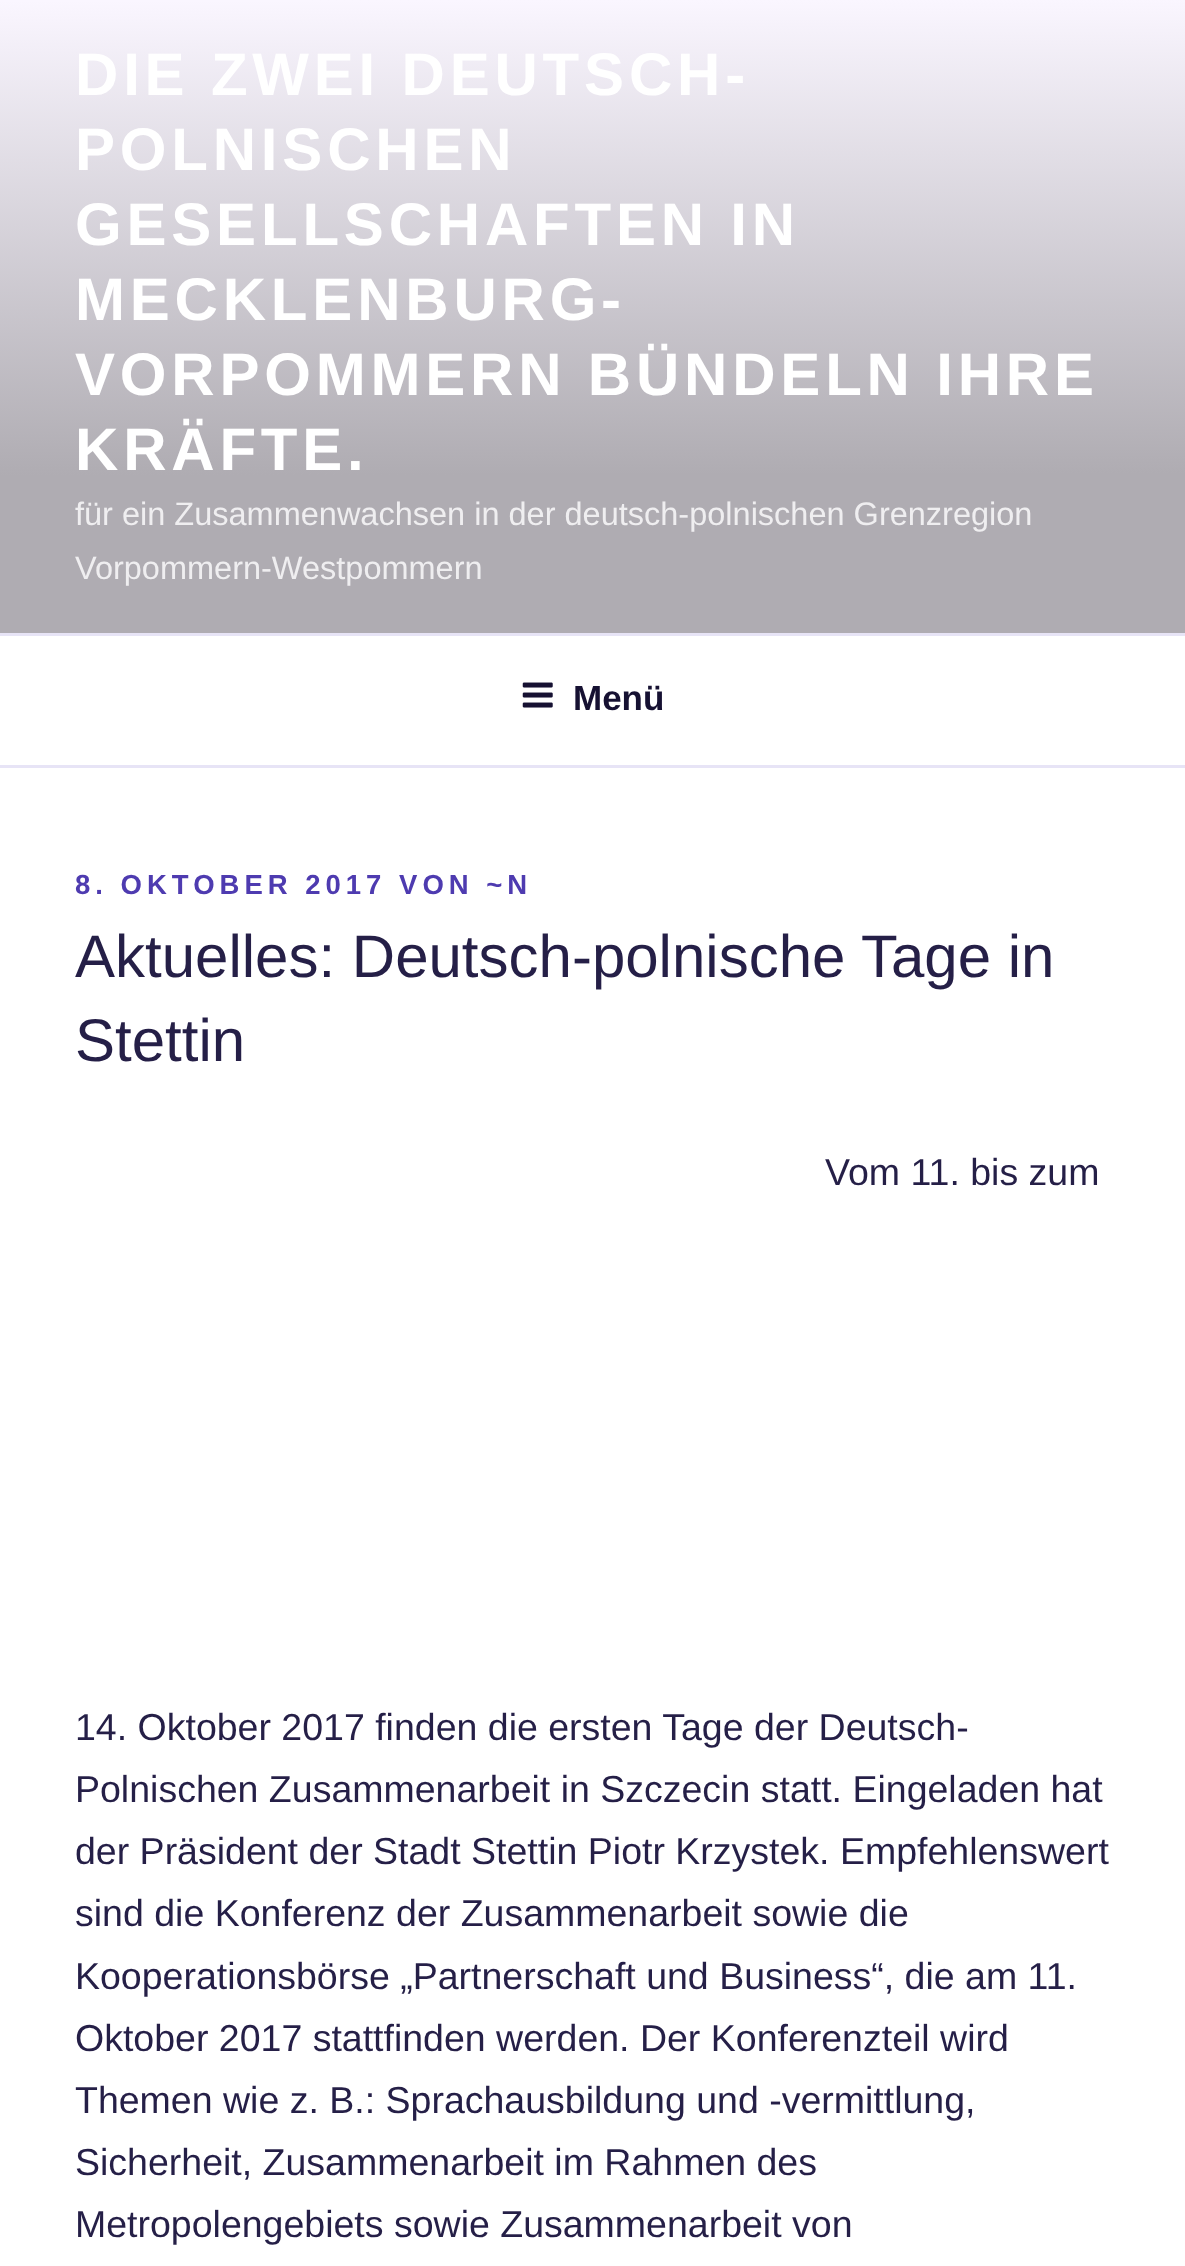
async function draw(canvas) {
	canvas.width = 1185;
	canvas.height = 2266;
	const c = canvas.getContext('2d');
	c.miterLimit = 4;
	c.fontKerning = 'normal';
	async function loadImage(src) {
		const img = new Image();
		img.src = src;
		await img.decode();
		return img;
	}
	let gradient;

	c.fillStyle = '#fff';
	c.fillRect(0, 0, 1185, 2266);
	gradient = c.createLinearGradient(592, 0, 593, 633);
	gradient.addColorStop(0, '#faf6ff');
	gradient.addColorStop(0.75, '#afacb2');
	gradient.addColorStop(1, '#afacb2');
	c.fillStyle = gradient;
	c.fillRect(0, 0, 1185, 633);
	c.letterSpacing = '4.8px';
	c.font = 'bold 60px Liberation Sans';
	c.fillStyle = '#fff';
	for (const [text, x, y] of [
		['DIE ZWEI DEUTSCH-', 75, 95],
		['POLNISCHEN', 75, 170],
		['GESELLSCHAFTEN IN', 75, 245],
		['MECKLENBURG-', 75, 320],
		['VORPOMMERN BÜNDELN IHRE', 75, 395],
		['KRÄFTE.', 75, 470],
	]) {
		c.fillText(text, x, y);
	}
	c.letterSpacing = '0px';
	c.font = '32.5px Liberation Sans';
	c.fillStyle = '#efeef0';
	c.fillText('für ein Zusammenwachsen in der deutsch-polnischen Grenzregion', 75, 525);
	c.fillText('Vorpommern-Westpommern', 75, 579);
	c.fillStyle = '#e7e4f6';
	c.fillRect(0, 633, 1185, 3);
	c.fillRect(0, 765, 1185, 3);
	c.drawImage(await loadImage('img1.png'), 522, 682, 31, 26);
	c.font = 'bold 35px Liberation Sans';
	c.fillStyle = '#161132';
	c.fillText('Menü', 573, 710);
	c.letterSpacing = '5px';
	c.font = 'bold 27.5px Liberation Sans';
	c.fillStyle = '#4e3bb0';
	c.fillText('8. OKTOBER 2017 VON ~N', 75, 894);
	c.letterSpacing = '0px';
	c.font = '60px Liberation Sans';
	c.fillStyle = '#251f47';
	c.fillText('Aktuelles: Deutsch-polnische Tage in', 75, 977);
	c.fillText('Stettin', 75, 1061);
	c.font = '37.5px Liberation Sans';
	for (const [text, x, y] of [
		['Vom 11. bis zum', 825, 1185],
		['14. Oktober 2017 finden die ersten Tage der Deutsch-', 75, 1740],
		['Polnischen Zusammenarbeit in Szczecin statt. Eingeladen hat', 75, 1802],
		['der Präsident der Stadt Stettin Piotr Krzystek. Empfehlenswert', 75, 1864],
		['sind die Konferenz der Zusammenarbeit sowie die', 75, 1926],
		['Kooperationsbörse „Partnerschaft und Business“, die am 11.', 75, 1989],
		['Oktober 2017 stattfinden werden. Der Konferenzteil wird', 75, 2051],
		['Themen wie z. B.: Sprachausbildung und -vermittlung,', 75, 2113],
		['Sicherheit, Zusammenarbeit im Rahmen des', 75, 2175],
		['Metropolengebiets sowie Zusammenarbeit von', 75, 2237],
	]) {
		c.fillText(text, x, y);
	}
}

draw(document.querySelector('canvas'));
